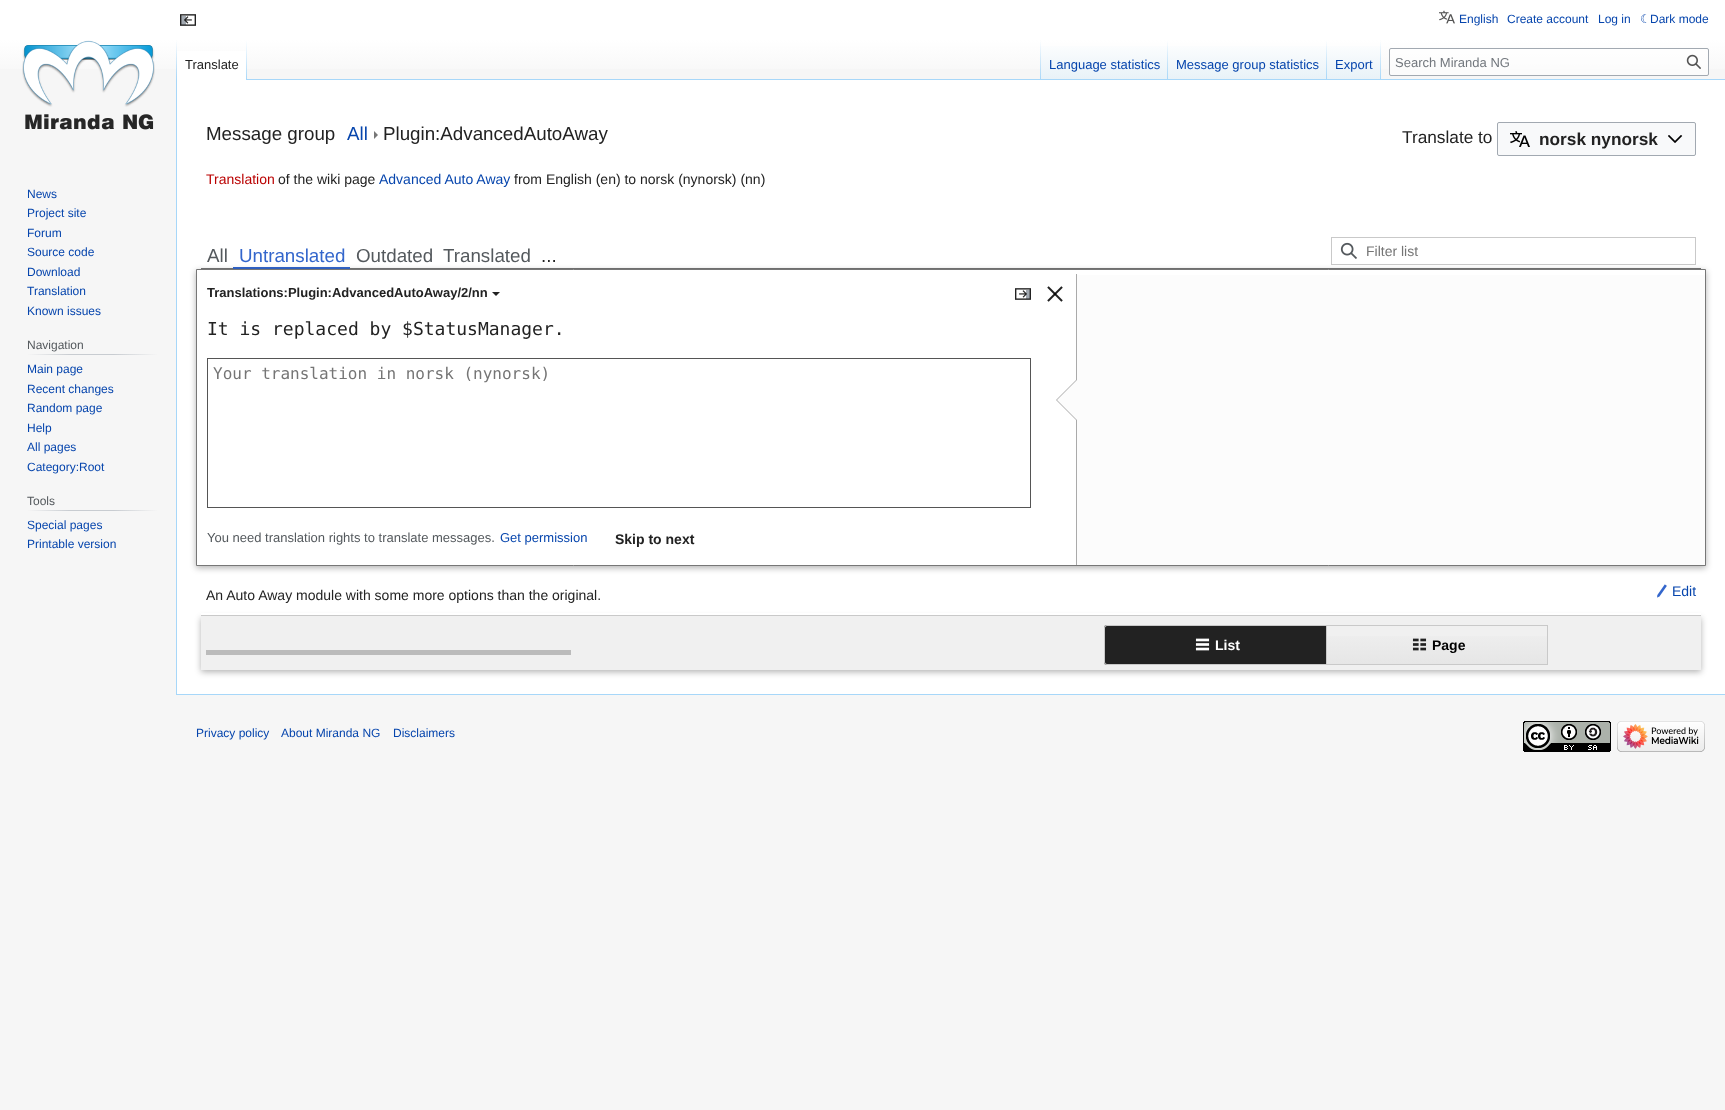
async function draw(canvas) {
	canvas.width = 1725;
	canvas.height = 1110;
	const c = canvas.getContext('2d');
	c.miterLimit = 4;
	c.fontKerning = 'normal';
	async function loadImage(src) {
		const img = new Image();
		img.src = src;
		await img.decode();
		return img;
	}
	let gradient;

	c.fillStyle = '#f6f6f6';
	c.fillRect(0, 0, 1725, 1110);
	gradient = c.createLinearGradient(863, 0, 863, 80);
	gradient.addColorStop(0.5, '#fff');
	gradient.addColorStop(1, '#f6f6f6');
	c.fillStyle = gradient;
	c.fillRect(0, 0, 1725, 69);
	c.drawImage(await loadImage('img1.png'), 1439, 10, 16, 14);
	c.font = '12px Liberation Sans';
	c.fillStyle = '#0645ad';
	for (const [text, x, y] of [
		['English', 1459, 23],
		['Create account', 1507, 23],
		['Log in', 1598, 23],
	]) {
		c.fillText(text, x, y);
	}
	c.font = '12px DejaVu Sans';
	c.fillText('☾', 1640, 23);
	c.font = '12px Liberation Sans';
	c.fillText('Dark mode', 1650, 23);
	c.fillStyle = '#a7d7f9';
	c.fillRect(176, 694, 1549, 1);
	c.fillRect(176, 79, 1, 616);
	gradient = c.createLinearGradient(177, 40, 177, 80);
	gradient.addColorStop(0, '#a7d7f900');
	gradient.addColorStop(1, '#a7d7f9');
	c.fillStyle = gradient;
	c.fillRect(176, 40, 1, 40);
	c.fillStyle = '#fff';
	c.fillRect(177, 51, 69, 29);
	gradient = c.createLinearGradient(247, 40, 247, 80);
	gradient.addColorStop(0, '#fff');
	gradient.addColorStop(1, '#a7d7f9');
	c.fillStyle = gradient;
	c.fillRect(246, 40, 1, 40);
	c.font = '13px Liberation Sans';
	c.fillStyle = '#222';
	c.fillText('Translate', 185, 69);
	c.fillStyle = '#a7d7f9';
	c.fillRect(247, 79, 1478, 1);
	gradient = c.createLinearGradient(1041, 40, 1041, 80);
	gradient.addColorStop(0, '#a7d7f900');
	gradient.addColorStop(1, '#a7d7f9');
	c.fillStyle = gradient;
	c.fillRect(1040, 40, 1, 40);
	gradient = c.createLinearGradient(1105, 80, 1105, 40);
	gradient.addColorStop(0, '#77c1f6');
	gradient.addColorStop(0.03, '#e8f2f8');
	gradient.addColorStop(1, '#fff');
	c.fillStyle = gradient;
	c.fillRect(1041, 46, 127, 33);
	gradient = c.createLinearGradient(1168, 40, 1168, 80);
	gradient.addColorStop(0, '#a7d7f900');
	gradient.addColorStop(1, '#a7d7f9');
	c.fillStyle = gradient;
	c.fillRect(1167, 40, 1, 40);
	c.fillStyle = '#0645ad';
	c.fillText('Language statistics', 1049, 69);
	gradient = c.createLinearGradient(1248, 80, 1248, 40);
	gradient.addColorStop(0, '#77c1f6');
	gradient.addColorStop(0.03, '#e8f2f8');
	gradient.addColorStop(1, '#fff');
	c.fillStyle = gradient;
	c.fillRect(1168, 46, 159, 33);
	gradient = c.createLinearGradient(1327, 40, 1327, 80);
	gradient.addColorStop(0, '#a7d7f900');
	gradient.addColorStop(1, '#a7d7f9');
	c.fillStyle = gradient;
	c.fillRect(1326, 40, 1, 40);
	c.fillStyle = '#0645ad';
	c.fillText('Message group statistics', 1176, 69);
	gradient = c.createLinearGradient(1354, 80, 1354, 40);
	gradient.addColorStop(0, '#77c1f6');
	gradient.addColorStop(0.03, '#e8f2f8');
	gradient.addColorStop(1, '#fff');
	c.fillStyle = gradient;
	c.fillRect(1327, 46, 54, 33);
	gradient = c.createLinearGradient(1381, 40, 1381, 80);
	gradient.addColorStop(0, '#a7d7f900');
	gradient.addColorStop(1, '#a7d7f9');
	c.fillStyle = gradient;
	c.fillRect(1380, 40, 1, 40);
	c.fillStyle = '#0645ad';
	c.fillText('Export', 1335, 69);
	c.fillStyle = '#ffffff80';
	c.beginPath();
	c.roundRect(1389.5, 48.5, 319, 27, 1.5);
	c.fill();
	c.strokeStyle = '#a2a9b1';
	c.stroke();
	c.fillStyle = '#72777d';
	c.fillText('Search Miranda NG', 1395, 67);
	c.drawImage(await loadImage('img2.png'), 1686, 54, 15, 15);
	c.drawImage(await loadImage('img3.png'), 22, 40, 133, 90);
	c.font = '12px Liberation Sans';
	c.fillStyle = '#0645ad';
	for (const [text, x, y] of [
		['News', 27, 198],
		['Project site', 27, 217],
		['Forum', 27, 237],
		['Source code', 27, 256],
		['Download', 27, 276],
		['Translation', 27, 295],
		['Known issues', 27, 315],
	]) {
		c.fillText(text, x, y);
	}
	gradient = c.createLinearGradient(27, 355, 158, 355);
	gradient.addColorStop(0, '#f6f6f6');
	gradient.addColorStop(0.33, '#c8ccd1');
	gradient.addColorStop(0.66, '#c8ccd1');
	gradient.addColorStop(1, '#f6f6f6');
	c.fillStyle = gradient;
	c.fillRect(27, 354, 131, 1);
	c.fillStyle = '#54595d';
	c.fillText('Navigation', 27, 349);
	c.fillStyle = '#0645ad';
	for (const [text, x, y] of [
		['Main page', 27, 373],
		['Recent changes', 27, 393],
		['Random page', 27, 412],
		['Help', 27, 432],
		['All pages', 27, 451],
		['Category:Root', 27, 471],
	]) {
		c.fillText(text, x, y);
	}
	gradient = c.createLinearGradient(27, 511, 158, 511);
	gradient.addColorStop(0, '#f6f6f6');
	gradient.addColorStop(0.33, '#c8ccd1');
	gradient.addColorStop(0.66, '#c8ccd1');
	gradient.addColorStop(1, '#f6f6f6');
	c.fillStyle = gradient;
	c.fillRect(27, 510, 131, 1);
	c.fillStyle = '#54595d';
	c.fillText('Tools', 27, 505);
	c.fillStyle = '#0645ad';
	c.fillText('Special pages', 27, 529);
	c.fillText('Printable version', 27, 548);
	c.drawImage(await loadImage('img4.png'), 180, 14, 16, 12);
	c.fillStyle = '#fff';
	c.fillRect(177, 80, 1548, 614);
	c.font = '18.75px Liberation Sans';
	c.fillStyle = '#222';
	c.fillText('Message group', 206, 140);
	c.fillStyle = '#0645ad';
	c.fillText('All', 347, 140);
	c.fillStyle = '#777';
	c.beginPath();
	c.moveTo(374, 139);
	c.lineTo(374, 131);
	c.lineTo(378, 135);
	c.closePath();
	c.fill();
	c.fillStyle = '#222';
	c.fillText('Plugin:AdvancedAutoAway', 383, 140);
	c.font = '17.25px Liberation Sans';
	c.fillText('Translate to', 1402, 143);
	c.fillStyle = '#f8f9fa';
	c.beginPath();
	c.roundRect(1497.5, 122.5, 198, 33, 1.5);
	c.fill();
	c.stroke();
	c.drawImage(await loadImage('img5.png'), 1510, 131, 20, 16);
	c.font = 'bold 17.25px Liberation Sans';
	c.fillStyle = '#222';
	c.fillText('norsk nynorsk', 1539, 145);
	c.drawImage(await loadImage('img6.png'), 1668, 135, 15, 8);
	c.font = '14px Liberation Sans';
	c.fillStyle = '#ba0000';
	c.fillText('Translation', 206, 184);
	c.fillStyle = '#222';
	c.fillText('of the wiki page', 278, 184);
	c.fillStyle = '#0645ad';
	c.fillText('Advanced Auto Away', 379, 184);
	c.fillStyle = '#222';
	c.fillText('from English (en) to norsk (nynorsk) (nn)', 514, 184);
	c.fillStyle = '#777';
	c.fillRect(201, 268, 1500, 1);
	c.font = '18.75px Liberation Sans';
	c.fillStyle = '#54595d';
	c.fillText('All', 207, 262);
	c.fillStyle = '#36c';
	c.fillRect(233, 267, 117, 2);
	c.fillText('Untranslated', 239, 262);
	c.fillStyle = '#54595d';
	c.fillText('Outdated', 356, 262);
	c.fillText('Translated', 443, 262);
	c.fillStyle = '#222';
	c.fillText('...', 541, 262);
	c.drawImage(await loadImage('img7.png'), 1340, 242, 17, 17);
	c.strokeStyle = '#c9c9c9';
	c.strokeRect(1331.5, 237.5, 364, 27);
	c.font = '14px Liberation Sans';
	c.fillStyle = '#757575';
	c.fillText('Filter list', 1366, 256);
	c.fillStyle = '#0000004d';
	c.filter = 'blur(3px)';
	c.beginPath();
	c.rect(196, 271, 1510, 297);
	c.fill();
	c.filter = 'none';
	c.fillStyle = '#fff';
	c.beginPath();
	c.rect(196.5, 269.5, 1509, 296);
	c.fill();
	c.strokeStyle = '#777';
	c.stroke();
	c.fillStyle = '#aaa';
	c.fillRect(1076, 274, 1, 291);
	c.font = 'bold 13px Liberation Sans';
	c.fillStyle = '#222';
	c.fillText('Translations:Plugin:AdvancedAutoAway/2/nn', 207, 297);
	c.beginPath();
	c.moveTo(492, 292);
	c.lineTo(500, 292);
	c.lineTo(496, 296);
	c.closePath();
	c.fill();
	c.drawImage(await loadImage('img8.png'), 1015, 288, 16, 12);
	c.drawImage(await loadImage('img9.png'), 1047, 286, 16, 16);
	c.font = '18px DejaVu Sans Mono';
	c.fillText('It is replaced by $StatusManager.', 207, 335);
	c.strokeStyle = '#555';
	c.strokeRect(207.5, 358.5, 823, 149);
	c.font = '16px DejaVu Sans Mono';
	c.fillStyle = '#757575';
	c.fillText('Your translation in norsk (nynorsk)', 213, 379);
	c.font = '13px Liberation Sans';
	c.fillStyle = '#54595d';
	c.fillText('You need translation rights to translate messages.', 207, 542);
	c.fillStyle = '#0645ad';
	c.fillText('Get permission', 500, 542);
	c.font = 'bold 14px Liberation Sans';
	c.fillStyle = '#222';
	c.fillText('Skip to next', 615, 544);
	c.fillStyle = '#fcfcfc';
	c.fillRect(1077, 275, 628, 290);
	c.fillStyle = '#aaa';
	c.beginPath();
	c.moveTo(1076, 380);
	c.lineTo(1076, 420);
	c.lineTo(1056, 400);
	c.closePath();
	c.fill();
	c.fillStyle = '#fcfcfc';
	c.beginPath();
	c.moveTo(1077, 380);
	c.lineTo(1077, 420);
	c.lineTo(1057, 400);
	c.closePath();
	c.fill();
	c.fillStyle = '#0000004d';
	c.filter = 'blur(3px)';
	c.beginPath();
	c.rect(201, 618, 1500, 54);
	c.fill();
	c.filter = 'none';
	c.fillStyle = '#fff';
	c.fillRect(201, 613, 1500, 2);
	c.fillStyle = '#c9c9c9';
	c.fillRect(201, 615, 1500, 1);
	c.font = '14px Liberation Sans';
	c.fillStyle = '#222';
	c.fillText('An Auto Away module with some more options than the original.', 206, 600);
	c.drawImage(await loadImage('img10.png'), 1657, 584, 10, 14);
	c.fillStyle = '#0645ad';
	c.fillText('Edit', 1672, 596);
	c.fillStyle = '#f0f0f0';
	c.fillRect(201, 616, 1500, 54);
	c.fillStyle = '#bbb';
	c.fillRect(206, 650, 365, 5);
	c.fillStyle = '#222';
	c.beginPath();
	c.roundRect(1104, 625, 222, 40, [3, 0, 0, 3]);
	c.fill();
	c.fillStyle = '#c9c9c9';
	c.beginPath();
	c.moveTo(1107, 625);
	c.lineTo(1326, 625);
	c.lineTo(1326, 665);
	c.lineTo(1107, 665);
	c.bezierCurveTo(1105, 665, 1104, 664, 1104, 662);
	c.lineTo(1104, 628);
	c.bezierCurveTo(1104, 626, 1105, 625, 1107, 625);
	c.closePath();
	c.moveTo(1107, 626);
	c.lineTo(1326, 626);
	c.lineTo(1326, 664);
	c.lineTo(1107, 664);
	c.bezierCurveTo(1106, 664, 1105, 663, 1105, 662);
	c.lineTo(1105, 628);
	c.bezierCurveTo(1105, 627, 1106, 626, 1107, 626);
	c.closePath();
	c.fill('evenodd');
	c.drawImage(await loadImage('img11.png'), 1195, 638, 15, 13);
	c.font = 'bold 14px Liberation Sans';
	c.fillStyle = '#fff';
	c.fillText('List', 1215, 650);
	gradient = c.createLinearGradient(1437, 626, 1437, 664);
	gradient.addColorStop(0, '#f0f0f0');
	gradient.addColorStop(1, '#e6e6e6');
	c.fillStyle = gradient;
	c.fillRect(1327, 636, 220, 28);
	c.strokeStyle = '#c9c9c9';
	c.strokeRect(1326.5, 625.5, 221, 39);
	c.drawImage(await loadImage('img12.png'), 1412, 638, 15, 13);
	c.fillStyle = '#000';
	c.fillText('Page', 1432, 650);
	c.font = '12px Liberation Sans';
	c.fillStyle = '#0645ad';
	for (const [text, x, y] of [
		['Privacy policy', 196, 737],
		['About Miranda NG', 281, 737],
		['Disclaimers', 393, 737],
	]) {
		c.fillText(text, x, y);
	}
	c.drawImage(await loadImage('img13.png'), 1523, 721, 88, 31);
	c.drawImage(await loadImage('img14.png'), 1617, 721, 88, 31);
}

draw(document.querySelector('canvas'));
